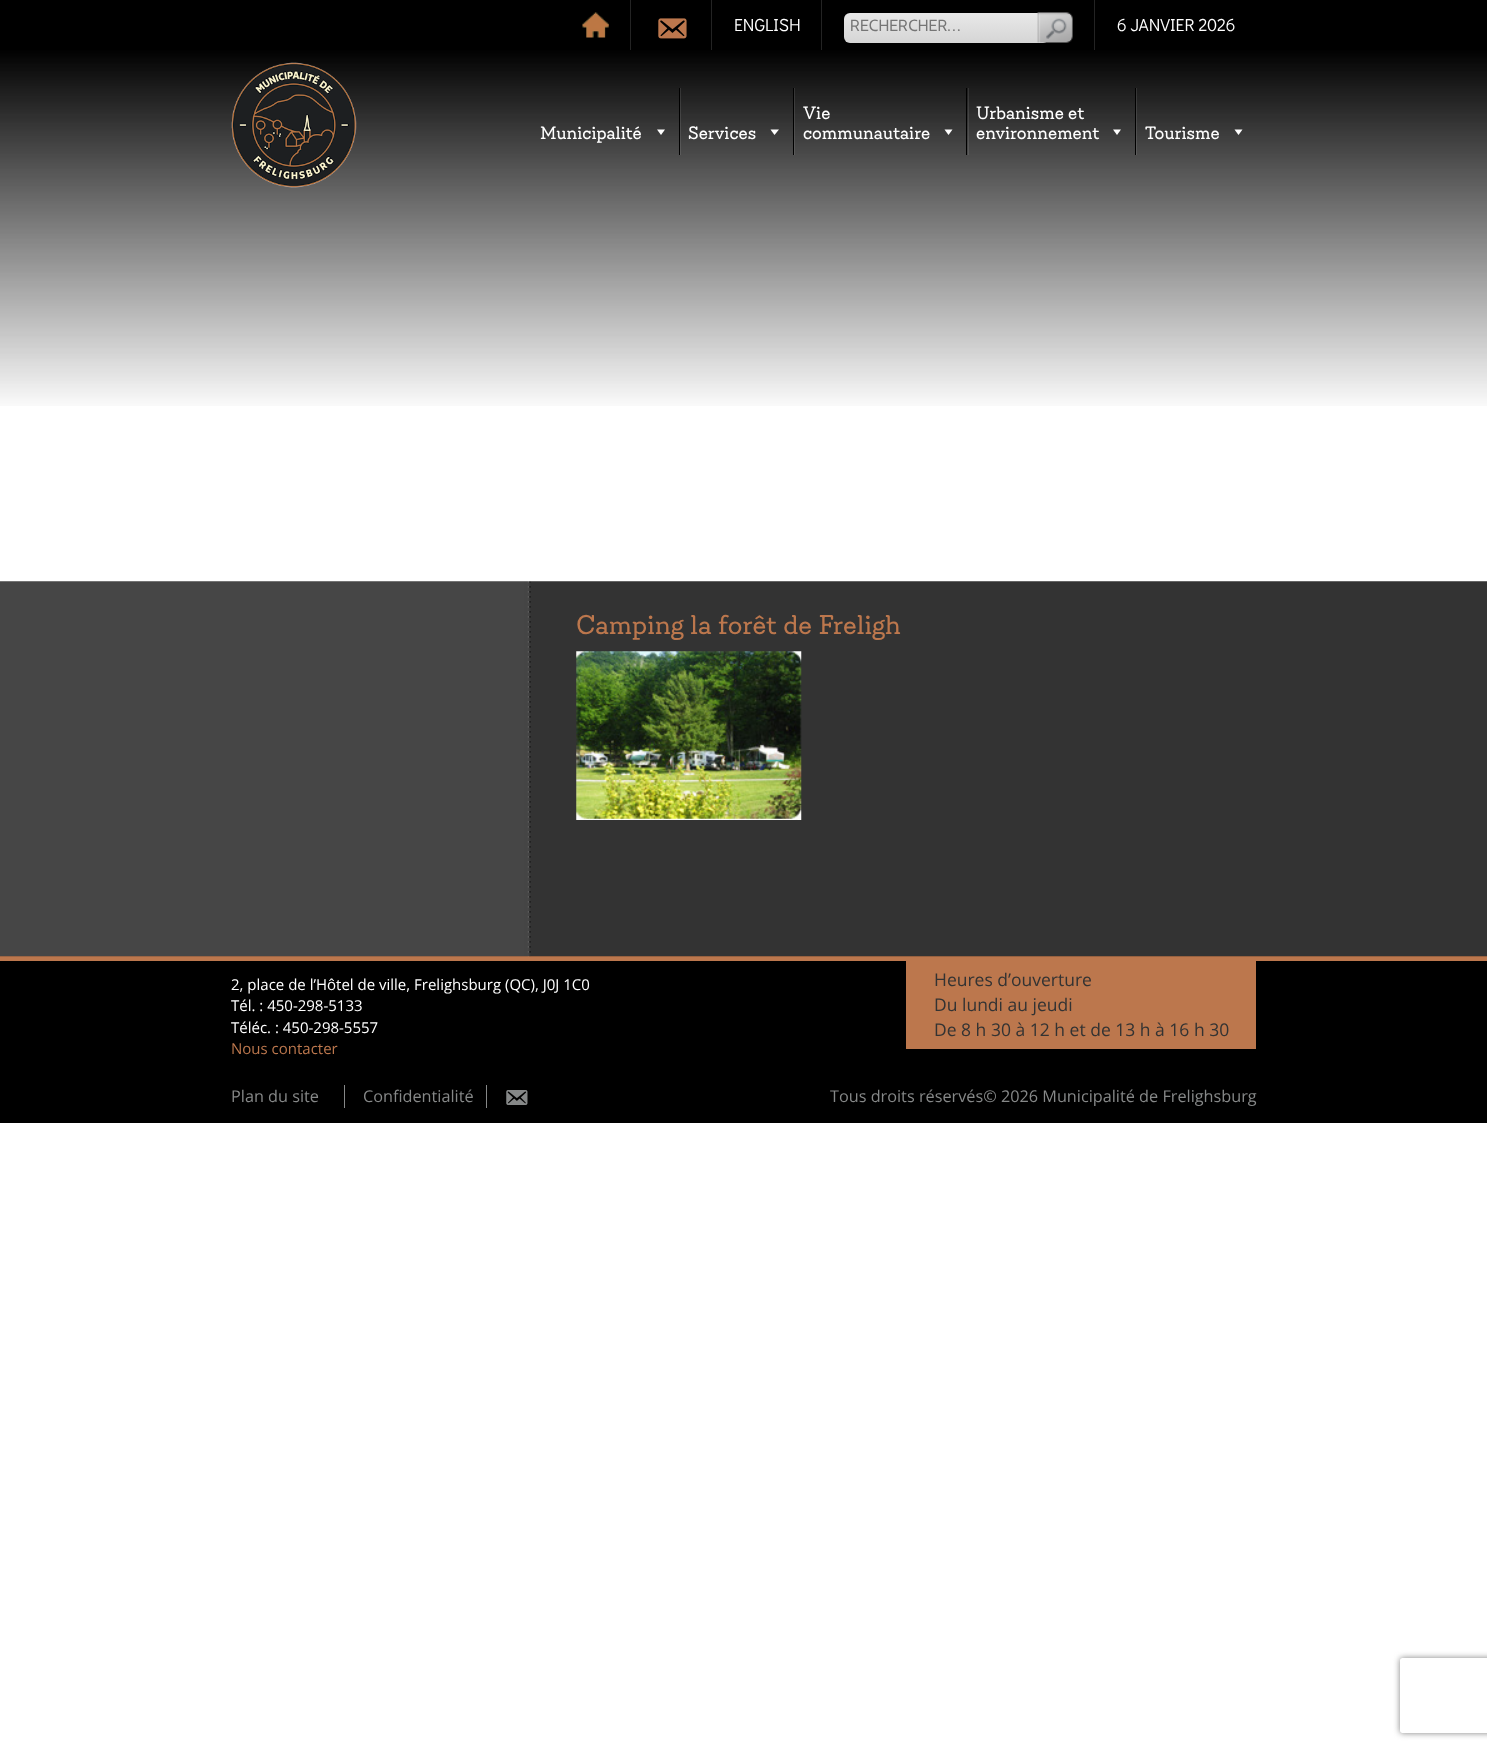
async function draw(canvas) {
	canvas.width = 1487;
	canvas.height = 1750;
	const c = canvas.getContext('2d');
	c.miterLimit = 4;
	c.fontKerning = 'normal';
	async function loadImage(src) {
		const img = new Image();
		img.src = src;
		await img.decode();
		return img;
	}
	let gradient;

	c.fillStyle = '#fff';
	c.fillRect(0, 0, 1487, 1750);
	c.fillStyle = '#000';
	c.fillRect(0, 0, 1487, 50);
	c.fillStyle = '#232323';
	c.fillRect(630, 0, 1, 50);
	c.drawImage(await loadImage('img1.png'), 582, 12, 27, 26);
	c.fillRect(711, 0, 1, 50);
	c.drawImage(await loadImage('img2.png'), 658, 18, 29, 21);
	c.fillRect(821, 0, 1, 50);
	c.font = '17.5px Didact Gothic';
	c.fillStyle = '#fff';
	c.fillText('ENGLISH', 734, 31);
	c.fillStyle = '#232323';
	c.fillRect(1094, 0, 1, 50);
	gradient = c.createLinearGradient(946, 12, 946, 43);
	gradient.addColorStop(0, '#e9e9e9');
	gradient.addColorStop(1, '#d5d5d5');
	c.fillStyle = gradient;
	c.beginPath();
	c.roundRect(844, 13, 205, 30, 6);
	c.fill();
	c.font = '16.25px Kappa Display';
	c.fillStyle = '#757575';
	c.fillText('RECHERCHER…', 850, 31);
	c.drawImage(await loadImage('img3.png'), 1037, 12, 36, 31);
	c.font = '17.5px Didact Gothic';
	c.fillStyle = '#fff';
	c.fillText('6 JANVIER 2026', 1117, 31);
	c.drawImage(await loadImage('img4.png'), 0, 50, 1487, 356);
	c.drawImage(await loadImage('img5.png'), 231, 62, 126, 126);
	c.font = '20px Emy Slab';
	c.fillText('Municipalité', 540, 139);
	c.beginPath();
	c.moveTo(665, 129.5);
	c.lineTo(661, 135);
	c.lineTo(657, 129.5);
	c.closePath();
	c.fill();
	c.fillStyle = '#ffffff1a';
	c.fillRect(680, 88, 1, 67);
	c.fillStyle = '#000';
	c.fillRect(679, 88, 1, 67);
	c.fillStyle = '#fff';
	c.fillText('Services', 688, 139);
	c.beginPath();
	c.moveTo(779, 129.5);
	c.lineTo(774.5, 135);
	c.lineTo(770.5, 129.5);
	c.closePath();
	c.fill();
	c.fillStyle = '#ffffff1a';
	c.fillRect(794, 88, 1, 67);
	c.fillStyle = '#000';
	c.fillRect(793, 88, 1, 67);
	c.fillStyle = '#fff';
	c.fillText('Vie', 803, 119);
	c.fillText('communautaire', 803, 139);
	c.beginPath();
	c.moveTo(952.5, 129.5);
	c.lineTo(948.5, 135);
	c.lineTo(944.5, 129.5);
	c.closePath();
	c.fill();
	c.fillStyle = '#ffffff1a';
	c.fillRect(968, 88, 1, 67);
	c.fillStyle = '#000';
	c.fillRect(966, 88, 1, 67);
	c.fillStyle = '#fff';
	c.fillText('Urbanisme et', 976, 119);
	c.fillText('environnement', 976, 139);
	c.beginPath();
	c.moveTo(1121, 129.5);
	c.lineTo(1117, 135);
	c.lineTo(1113, 129.5);
	c.closePath();
	c.fill();
	c.fillStyle = '#ffffff1a';
	c.fillRect(1136, 88, 1, 67);
	c.fillStyle = '#000';
	c.fillRect(1135, 88, 1, 67);
	c.fillStyle = '#fff';
	c.fillText('Tourisme', 1145, 139);
	c.beginPath();
	c.moveTo(1242.5, 129.5);
	c.lineTo(1238.5, 135);
	c.lineTo(1234.5, 129.5);
	c.closePath();
	c.fill();
	c.fillStyle = '#bc774d';
	c.fillRect(0, 956, 1487, 5);
	c.drawImage(await loadImage('img6.png'), 0, 581, 1487, 376);
	c.font = '30px Emy Slab';
	c.fillText('Camping la forêt de Freligh', 576, 634);
	c.drawImage(await loadImage('img7.png'), 576, 651, 226, 169);
	c.fillStyle = '#000';
	c.fillRect(0, 961, 1487, 162);
	c.font = '15px Open Sans';
	c.fillStyle = '#fff';
	for (const [text, x, y] of [
		['2, place de l’Hôtel de ville, Frelighsburg (QC), J0J 1C0', 231, 990],
		['Tél. : 450-298-5133', 231, 1011],
		['Téléc. : 450-298-5557', 231, 1033],
	]) {
		c.fillText(text, x, y);
	}
	c.fillStyle = '#bc774d';
	c.fillText('Nous contacter', 231, 1054);
	c.fillRect(906, 961, 350, 88);
	c.font = '17.5px Open Sans';
	c.fillStyle = '#333';
	for (const [text, x, y] of [
		['Heures d’ouverture', 934, 986],
		['Du lundi au jeudi', 934, 1011],
		['De 8 h 30 à 12 h et de 13 h à 16 h 30', 934, 1036],
	]) {
		c.fillText(text, x, y);
	}
	c.fillStyle = '#868888';
	c.fillRect(344, 1085, 1, 23);
	c.font = '16.25px Open Sans';
	c.fillText('Plan du site', 231, 1102);
	c.fillRect(486, 1085, 1, 23);
	c.fillText('Confidentialité', 363, 1102);
	c.drawImage(await loadImage('img8.png'), 506, 1090, 22, 15);
	c.fillText('Tous droits réservés© 2026 Municipalité de Frelighsburg', 830, 1102);
	c.save();
	c.beginPath();
	c.moveTo(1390, 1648);
	c.lineTo(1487, 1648);
	c.lineTo(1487, 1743);
	c.lineTo(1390, 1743);
	c.closePath();
	c.moveTo(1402.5, 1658);
	c.lineTo(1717.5, 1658);
	c.bezierCurveTo(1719, 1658, 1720, 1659, 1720, 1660.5);
	c.lineTo(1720, 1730.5);
	c.bezierCurveTo(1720, 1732, 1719, 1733, 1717.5, 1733);
	c.lineTo(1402.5, 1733);
	c.bezierCurveTo(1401, 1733, 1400, 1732, 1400, 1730.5);
	c.lineTo(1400, 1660.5);
	c.bezierCurveTo(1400, 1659, 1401, 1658, 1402.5, 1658);
	c.closePath();
	c.clip('evenodd');
	c.fillStyle = '#808080';
	c.filter = 'blur(3px)';
	c.beginPath();
	c.roundRect(1400, 1658, 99, 75, 2.5);
	c.fill();
	c.filter = 'none';
	c.restore();
}

draw(document.querySelector('canvas'));
